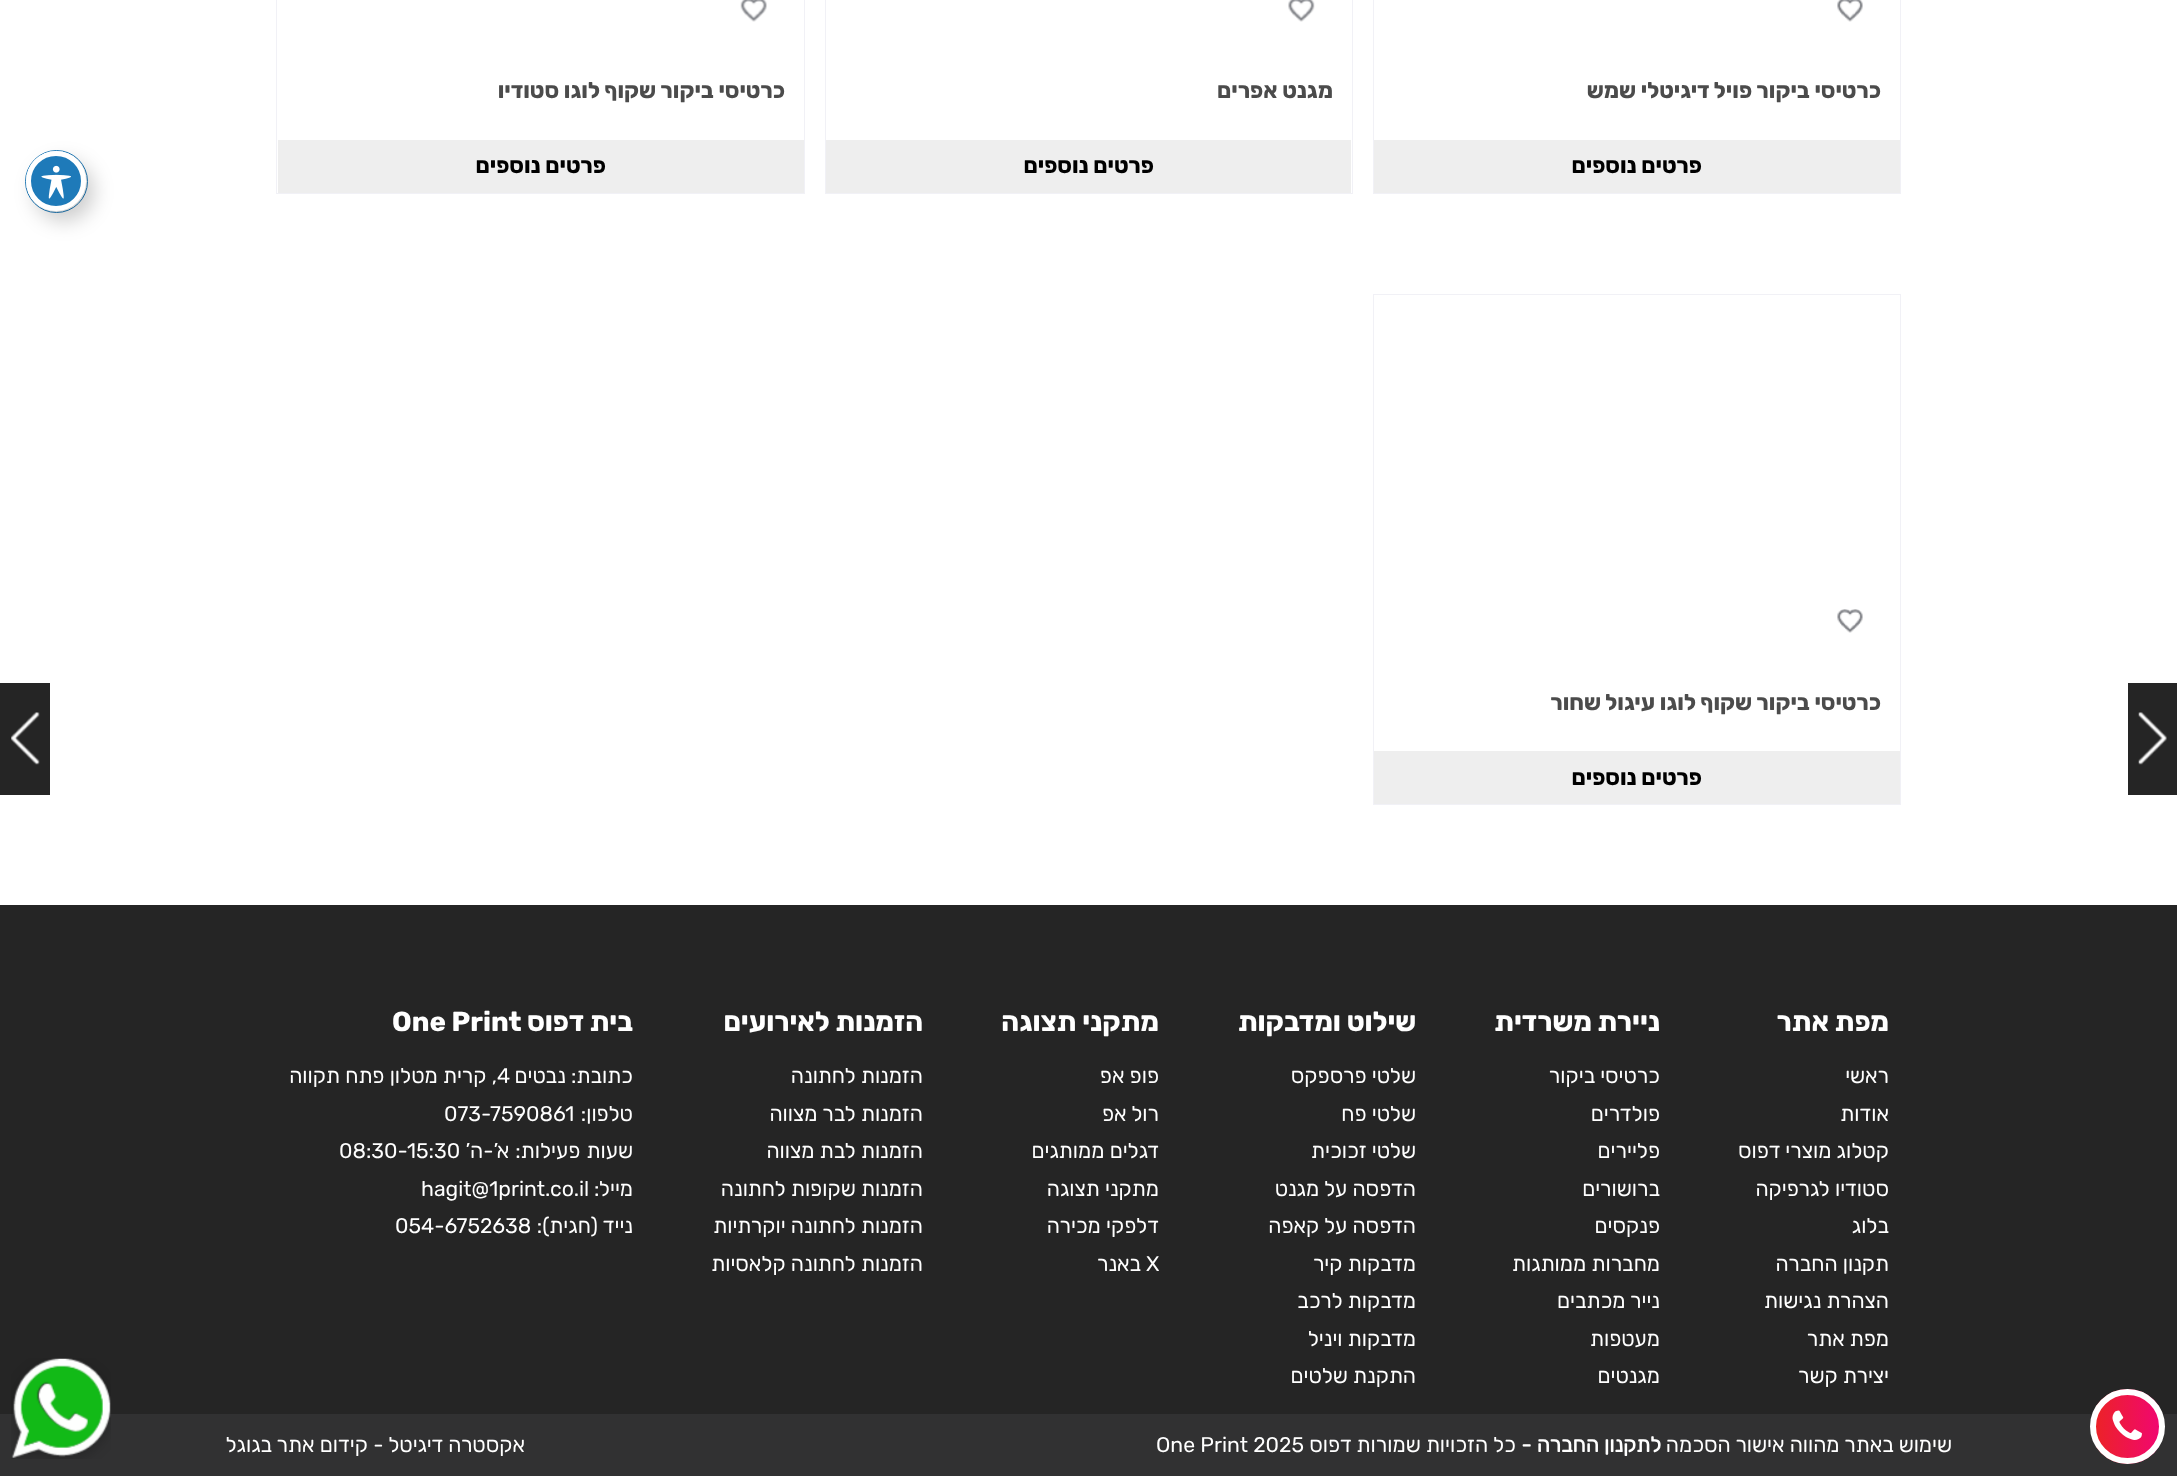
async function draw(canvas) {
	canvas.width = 2177;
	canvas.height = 1476;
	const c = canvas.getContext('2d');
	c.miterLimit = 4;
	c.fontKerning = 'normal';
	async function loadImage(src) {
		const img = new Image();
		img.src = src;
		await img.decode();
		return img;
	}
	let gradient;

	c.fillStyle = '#fff';
	c.fillRect(0, 0, 2177, 1476);
	c.strokeStyle = '#f1f1f6';
	c.strokeRect(1373.5, -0.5, 527, 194);
	c.drawImage(await loadImage('img1.png'), 1837, 0, 26, 22);
	c.direction = 'rtl';
	c.font = 'bold 22.5px Rubik';
	c.fillStyle = '#4b4b4b';
	c.fillText('כרטיסי ביקור פויל דיגיטלי שמש', 1881, 98);
	c.fillStyle = '#eee';
	c.fillRect(1374, 140, 526, 53);
	c.fillStyle = '#000';
	c.fillText('פרטים נוספים', 1702, 173);
	c.strokeRect(825.5, -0.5, 527, 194);
	c.drawImage(await loadImage('img2.png'), 1288, 0, 27, 22);
	c.fillStyle = '#4b4b4b';
	c.fillText('מגנט אפרים', 1333, 98);
	c.fillStyle = '#eee';
	c.fillRect(826, 140, 525, 53);
	c.fillStyle = '#000';
	c.fillText('פרטים נוספים', 1154, 173);
	c.strokeRect(276.5, -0.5, 528, 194);
	c.drawImage(await loadImage('img3.png'), 740, 0, 27, 22);
	c.fillStyle = '#4b4b4b';
	c.fillText('כרטיסי ביקור שקוף לוגו סטודיו', 785, 98);
	c.fillStyle = '#eee';
	c.fillRect(278, 140, 526, 53);
	c.fillStyle = '#000';
	c.fillText('פרטים נוספים', 606, 173);
	c.strokeRect(1373.5, 294.5, 527, 510);
	c.drawImage(await loadImage('img4.png'), 1837, 609, 26, 24);
	c.fillStyle = '#4b4b4b';
	c.fillText('כרטיסי ביקור שקוף לוגו עיגול שחור', 1881, 710);
	c.fillStyle = '#eee';
	c.fillRect(1374, 751, 526, 53);
	c.fillStyle = '#000';
	c.fillText('פרטים נוספים', 1702, 785);
	c.beginPath();
	c.arc(56.5, 181.5, 31, 0, 2 * Math.PI);
	c.strokeStyle = '#1e7ab9';
	c.stroke();
	c.fillStyle = '#00000033';
	c.filter = 'blur(10px)';
	c.beginPath();
	c.roundRect(34, 161, 60, 60, 30);
	c.fill();
	c.filter = 'none';
	c.fillStyle = '#1e7ab9';
	c.beginPath();
	c.arc(56, 181, 27.5, 0, 2 * Math.PI);
	c.fill();
	c.strokeStyle = '#fff';
	c.lineWidth = 5;
	c.stroke();
	c.drawImage(await loadImage('img5.png'), 41, 165, 30, 34);
	c.fillStyle = '#252525';
	c.fillRect(2128, 683, 49, 112);
	c.drawImage(await loadImage('img6.png'), 2138, 712, 29, 53);
	c.fillRect(0, 683, 50, 112);
	c.drawImage(await loadImage('img7.png'), 11, 712, 29, 53);
	c.fillRect(0, 905, 2177, 509);
	c.fillStyle = '#313132';
	c.fillRect(0, 1414, 2177, 62);
	c.save();
	c.beginPath();
	c.roundRect(2090, 1389, 75, 75, 37.5);
	c.clip();
	gradient = c.createLinearGradient(2096, 1426, 2159, 1426);
	gradient.addColorStop(0, '#ec2228');
	gradient.addColorStop(1, '#f1076f');
	c.fillStyle = gradient;
	c.fillRect(2096, 1389, 63, 75);
	c.restore();
	c.beginPath();
	c.arc(2127.5, 1426.5, 34.5, 0, 2 * Math.PI);
	c.lineWidth = 6;
	c.stroke();
	c.drawImage(await loadImage('img8.png'), 2112, 1410, 30, 30);
	c.font = 'bold 27.5px Rubik';
	c.fillStyle = '#fff';
	c.fillText('מפת אתר', 1889, 1031);
	c.font = '21.25px Rubik';
	for (const [text, x, y] of [
		['ראשי', 1889, 1083],
		['אודות', 1889, 1121],
		['קטלוג מוצרי דפוס', 1889, 1158],
		['סטודיו לגרפיקה', 1889, 1196],
		['בלוג', 1889, 1233],
		['תקנון החברה', 1889, 1271],
		['הצהרת נגישות', 1889, 1308],
		['מפת אתר', 1889, 1346],
		['יצירת קשר', 1889, 1383],
	]) {
		c.fillText(text, x, y);
	}
	c.font = 'bold 27.5px Rubik';
	c.fillText('ניירת משרדית', 1660, 1031);
	c.font = '21.25px Rubik';
	for (const [text, x, y] of [
		['כרטיסי ביקור', 1660, 1083],
		['פולדרים', 1660, 1121],
		['פליירים', 1660, 1158],
		['ברושורים', 1660, 1196],
		['פנקסים', 1660, 1233],
		['מחברות ממותגות', 1660, 1271],
		['נייר מכתבים', 1660, 1308],
		['מעטפות', 1660, 1346],
		['מגנטים', 1660, 1383],
	]) {
		c.fillText(text, x, y);
	}
	c.font = 'bold 27.5px Rubik';
	c.fillText('שילוט ומדבקות', 1416, 1031);
	c.font = '21.25px Rubik';
	for (const [text, x, y] of [
		['שלטי פרספקס', 1416, 1083],
		['שלטי פח', 1416, 1121],
		['שלטי זכוכית', 1416, 1158],
		['הדפסה על מגנט', 1416, 1196],
		['הדפסה על קאפה', 1416, 1233],
		['מדבקות קיר', 1416, 1271],
		['מדבקות לרכב', 1416, 1308],
		['מדבקות ויניל', 1416, 1346],
		['התקנת שלטים', 1416, 1383],
	]) {
		c.fillText(text, x, y);
	}
	c.font = 'bold 27.5px Rubik';
	c.fillText('מתקני תצוגה', 1159, 1031);
	c.font = '21.25px Rubik';
	for (const [text, x, y] of [
		['פופ אפ', 1159, 1083],
		['רול אפ', 1159, 1121],
		['דגלים ממותגים', 1159, 1158],
		['מתקני תצוגה', 1159, 1196],
		['דלפקי מכירה', 1159, 1233],
	]) {
		c.fillText(text, x, y);
	}
	c.direction = 'ltr';
	c.fillText('X', 1146, 1271);
	c.direction = 'rtl';
	c.fillText('באנר', 1141, 1271);
	c.font = 'bold 27.5px Rubik';
	c.fillText('הזמנות לאירועים', 923, 1031);
	c.font = '21.25px Rubik';
	for (const [text, x, y] of [
		['הזמנות לחתונה', 923, 1083],
		['הזמנות לבר מצווה', 923, 1121],
		['הזמנות לבת מצווה', 923, 1158],
		['הזמנות שקופות לחתונה', 923, 1196],
		['הזמנות לחתונה יוקרתיות', 923, 1233],
		['הזמנות לחתונה קלאסיות', 923, 1271],
	]) {
		c.fillText(text, x, y);
	}
	c.font = 'bold 27.5px Rubik';
	c.fillText('בית דפוס', 633, 1031);
	c.direction = 'ltr';
	c.fillText('One Print', 392, 1031);
	c.direction = 'rtl';
	c.font = '21.25px Rubik';
	c.fillText('כתובת: נבטים', 633, 1083);
	c.direction = 'ltr';
	c.fillText('4', 497, 1083);
	c.direction = 'rtl';
	c.fillText(', קרית מטלון פתח תקווה', 497, 1083);
	c.fillText('טלפון:', 633, 1121);
	c.direction = 'ltr';
	c.fillText('073-7590861', 444, 1121);
	c.wordSpacing = '1px';
	c.direction = 'rtl';
	c.fillText('שעות פעילות: א’-ה’', 633, 1158);
	c.wordSpacing = '0px';
	c.direction = 'ltr';
	c.fillText('08:30-15:30', 339, 1158);
	c.direction = 'rtl';
	c.fillText('מייל:', 633, 1196);
	c.direction = 'ltr';
	c.fillText('hagit@1print.co.il', 421, 1196);
	c.direction = 'rtl';
	c.fillText('נייד (חגית):', 633, 1233);
	c.direction = 'ltr';
	c.fillText('054-6752638', 395, 1233);
	c.direction = 'rtl';
	c.fillText('שימוש באתר מהווה אישור הסכמה', 1952, 1452);
	c.font = 'bold 21.25px "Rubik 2"';
	c.fillText('לתקנון החברה -', 1661, 1452);
	c.font = '21.25px Rubik';
	c.fillText('כל הזכויות שמורות דפוס', 1516, 1452);
	c.direction = 'ltr';
	c.fillText('One Print 2025', 1156, 1452);
	c.direction = 'rtl';
	c.fillText('אקסטרה דיגיטל - קידום אתר בגוגל', 525, 1452);
	c.drawImage(await loadImage('img9.png'), 11, 1358, 100, 101);
}

draw(document.querySelector('canvas'));
